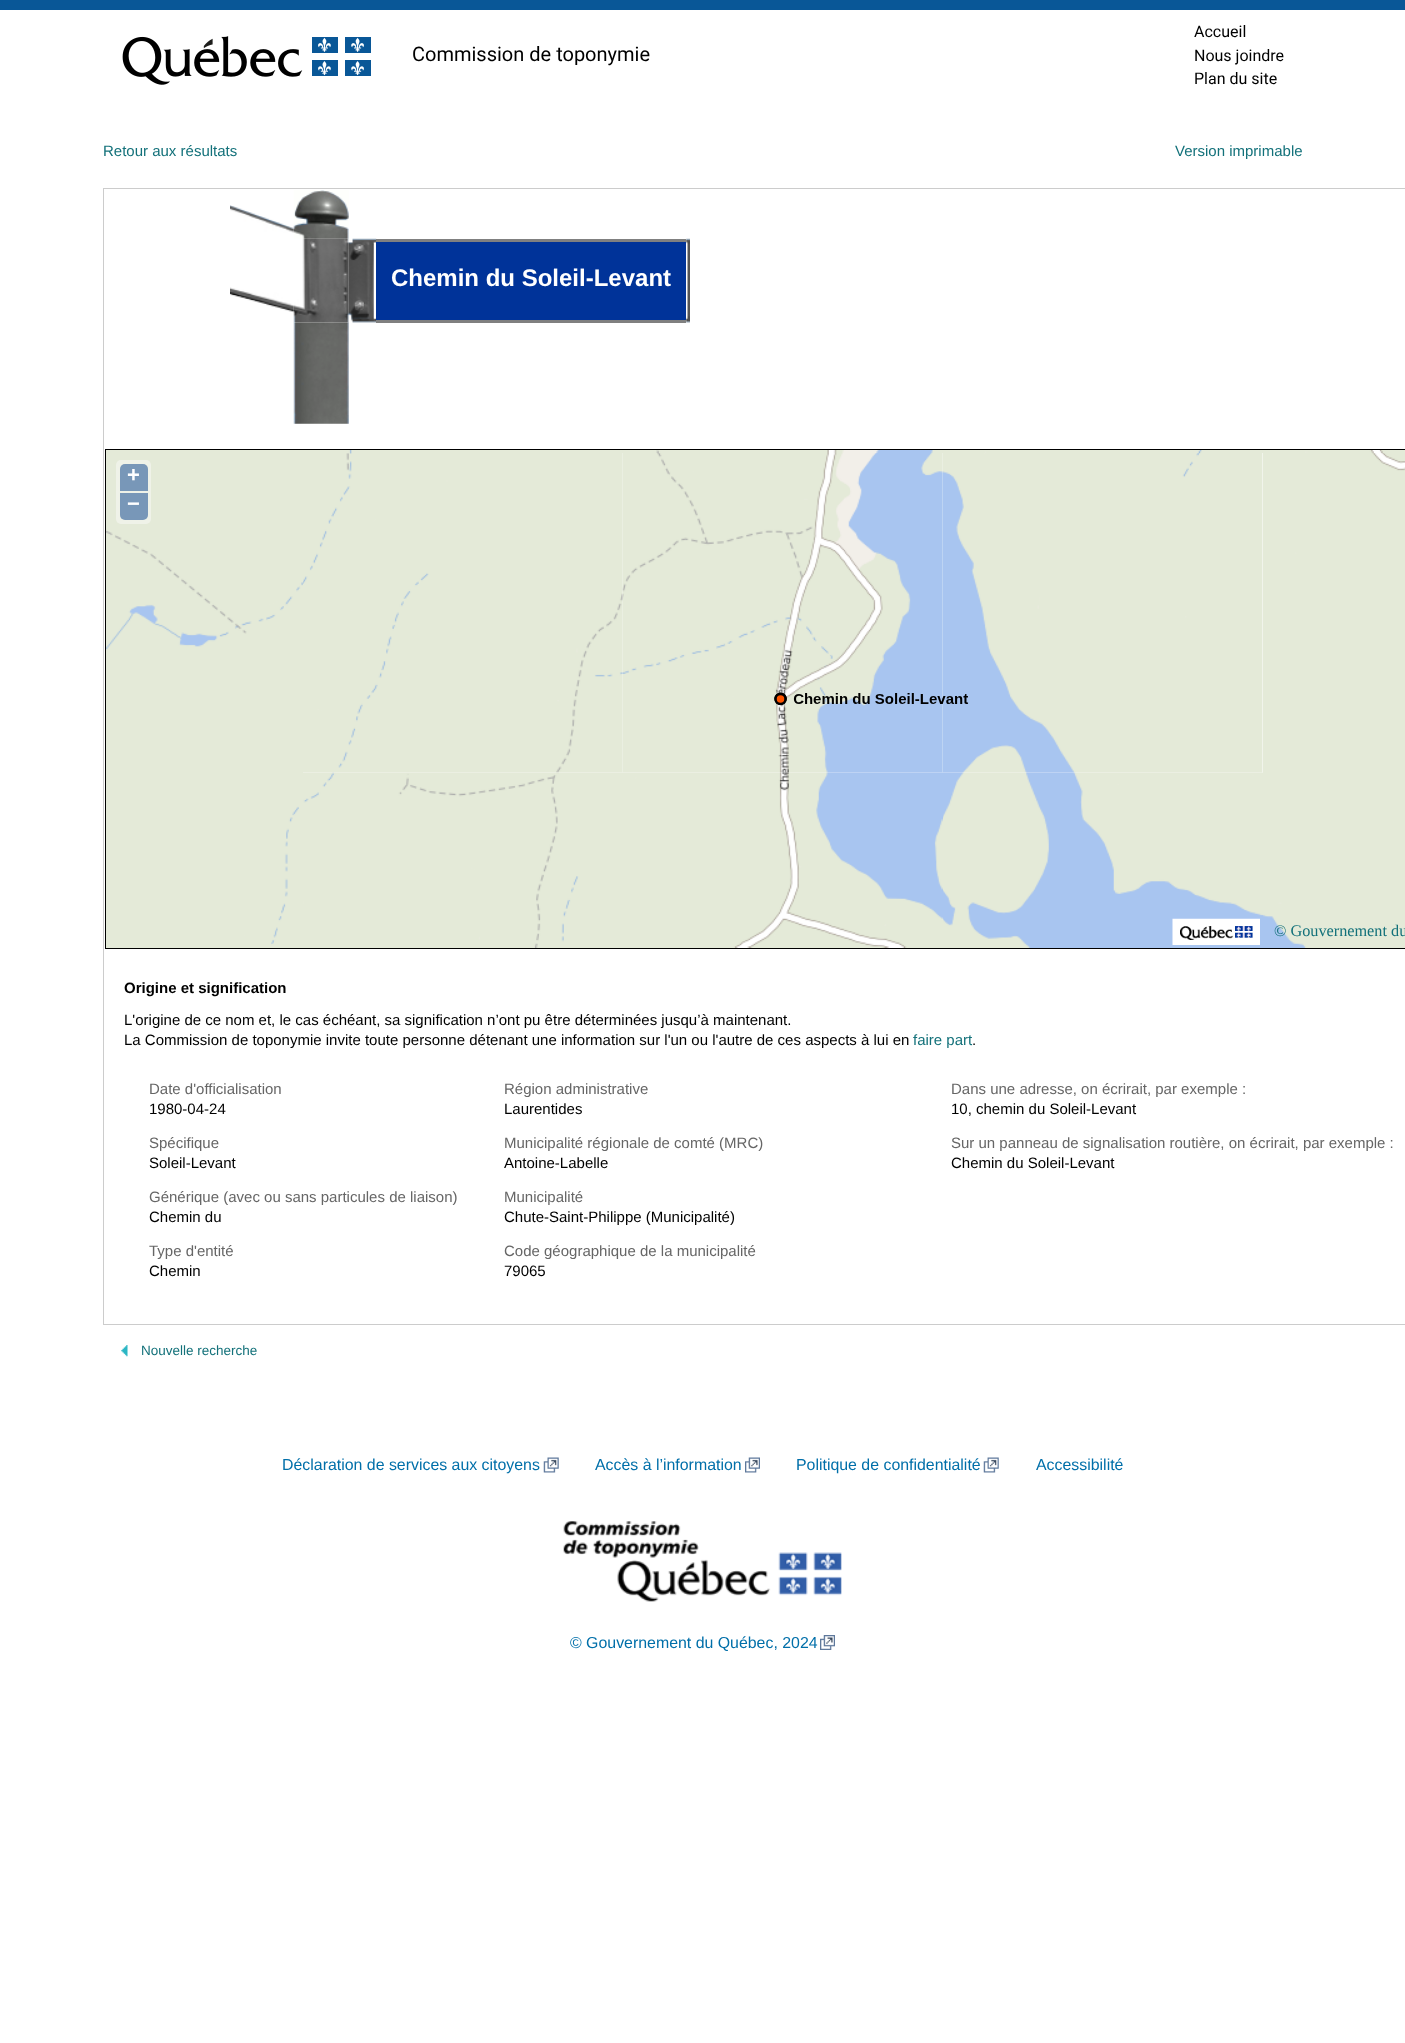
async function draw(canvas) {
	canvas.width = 1405;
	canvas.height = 2043;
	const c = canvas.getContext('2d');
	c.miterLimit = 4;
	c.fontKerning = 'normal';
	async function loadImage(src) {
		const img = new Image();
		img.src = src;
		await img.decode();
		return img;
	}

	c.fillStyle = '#fff';
	c.fillRect(0, 0, 1405, 2043);
	c.fillStyle = '#095797';
	c.fillRect(0, 0, 1405, 10);
	c.drawImage(await loadImage('img1.png'), 122, 36, 249, 49);
	c.font = '20px Roboto';
	c.fillStyle = '#000';
	c.fillText('Commission de toponymie', 412, 61);
	c.font = '16px Roboto';
	for (const [text, x, y] of [
		['Accueil', 1194, 37],
		['Nous joindre', 1194, 61],
		['Plan du site', 1194, 84],
	]) {
		c.fillText(text, x, y);
	}
	c.font = '15px Liberation Sans';
	c.fillStyle = '#13717a';
	c.fillText('Retour aux résultats', 103, 156);
	c.fillText('Version imprimable', 1175, 156);
	for (const [x, y, w, h, color] of [
		[103, 188, 1302, 1, '#ccc'],
		[103, 1324, 1302, 1, '#ccc'],
		[103, 188, 1, 1137, '#ccc'],
	]) {
		c.fillStyle = color;
		c.fillRect(x, y, w, h);
	}
	c.drawImage(await loadImage('img2.png'), 230, 205, 64, 28);
	c.drawImage(await loadImage('img3.png'), 293, 190, 56, 49);
	c.drawImage(await loadImage('img8.png'), 230, 287, 64, 26);
	c.drawImage(await loadImage('img4.png'), 293, 238, 56, 85);
	c.drawImage(await loadImage('img5.png'), 348, 238, 27, 85);
	c.drawImage(await loadImage('img6.png'), 375, 238, 2, 85);
	for (const [x, y, w, h, color] of [
		[376, 242, 310, 78, '#039'],
		[376, 239, 310, 3, '#808080'],
		[376, 320, 310, 3, '#808080'],
	]) {
		c.fillStyle = color;
		c.fillRect(x, y, w, h);
	}
	c.font = 'bold 24px Liberation Sans';
	c.fillStyle = '#fff';
	c.fillText('Chemin du Soleil-Levant', 391, 286);
	c.drawImage(await loadImage('img7.png'), 686, 238, 4, 85);
	c.drawImage(await loadImage('img9.png'), 293, 322, 56, 102);
	c.strokeStyle = '#000';
	c.strokeRect(105.5, 449.5, 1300, 499);
	c.fillStyle = '#e4ead8';
	c.fillRect(106, 450, 197, 3);
	c.drawImage(await loadImage('img10.png'), 303, 450, 320, 3);
	c.drawImage(await loadImage('img11.png'), 623, 450, 320, 3);
	c.drawImage(await loadImage('img12.png'), 943, 450, 320, 3);
	c.drawImage(await loadImage('img13.png'), 1263, 450, 142, 3);
	c.drawImage(await loadImage('img14.png'), 106, 453, 197, 320);
	c.drawImage(await loadImage('img16.png'), 622, 453, 321, 320);
	c.drawImage(await loadImage('img15.png'), 303, 453, 320, 320);
	c.drawImage(await loadImage('img21.png'), 623, 772, 320, 176);
	c.drawImage(await loadImage('img17.png'), 941, 453, 322, 320);
	c.drawImage(await loadImage('img18.png'), 1263, 453, 142, 320);
	c.drawImage(await loadImage('img19.png'), 106, 773, 197, 175);
	c.drawImage(await loadImage('img20.png'), 303, 772, 320, 176);
	c.drawImage(await loadImage('img22.png'), 943, 772, 320, 176);
	c.drawImage(await loadImage('img23.png'), 1263, 773, 142, 175);
	c.fillStyle = '#f50';
	c.beginPath();
	c.arc(780.5, 699, 5, 0, 2 * Math.PI);
	c.fill();
	c.lineWidth = 2.5;
	c.stroke();
	c.fillStyle = '#eff2e8';
	c.beginPath();
	c.roundRect(116, 460, 35, 64, 5);
	c.fill();
	c.fillStyle = '#7897b8';
	c.beginPath();
	c.roundRect(120, 464, 28, 27, [5, 5, 0, 0]);
	c.fill();
	c.font = 'bold 22px Liberation Sans';
	c.fillStyle = '#fff';
	c.fillText('+', 127, 482);
	c.fillStyle = '#7897b8';
	c.beginPath();
	c.roundRect(120, 493, 28, 27, [0, 0, 5, 5]);
	c.fill();
	c.fillStyle = '#fff';
	c.fillText('−', 127, 511);
	c.drawImage(await loadImage('img24.png'), 1172, 918, 88, 27);
	c.font = '16.25px Liberation Serif';
	c.fillStyle = '#13717a';
	c.fillText('© Gouvernement du', 1274, 936);
	c.font = 'bold 15px Liberation Sans';
	c.fillStyle = '#000';
	c.fillText('Origine et signification', 124, 993);
	c.font = '15px Liberation Sans';
	c.fillText('L\'origine de ce nom et, le cas échéant, sa signification n’ont pu être déterminées jusqu’à maintenant.', 124, 1025);
	c.fillText('La Commission de toponymie invite toute personne détenant une information sur l\'un ou l\'autre de ces aspects à lui en', 124, 1045);
	c.fillStyle = '#13717a';
	c.fillText('faire part', 913, 1045);
	c.fillStyle = '#000';
	c.fillText('.', 972, 1045);
	c.fillStyle = '#666';
	c.fillText('Date d\'officialisation', 149, 1094);
	c.fillStyle = '#000';
	c.fillText('1980-04-24', 149, 1114);
	c.fillStyle = '#666';
	c.fillText('Spécifique', 149, 1148);
	c.fillStyle = '#000';
	c.fillText('Soleil-Levant', 149, 1168);
	c.fillStyle = '#666';
	c.fillText('Générique (avec ou sans particules de liaison)', 149, 1202);
	c.fillStyle = '#000';
	c.fillText('Chemin du', 149, 1222);
	c.fillStyle = '#666';
	c.fillText('Type d\'entité', 149, 1256);
	c.fillStyle = '#000';
	c.fillText('Chemin', 149, 1276);
	c.fillStyle = '#666';
	c.fillText('Région administrative', 504, 1094);
	c.fillStyle = '#000';
	c.fillText('Laurentides', 504, 1114);
	c.fillStyle = '#666';
	c.fillText('Municipalité régionale de comté (MRC)', 504, 1148);
	c.fillStyle = '#000';
	c.fillText('Antoine-Labelle', 504, 1168);
	c.fillStyle = '#666';
	c.fillText('Municipalité', 504, 1202);
	c.fillStyle = '#000';
	c.fillText('Chute-Saint-Philippe (Municipalité)', 504, 1222);
	c.fillStyle = '#666';
	c.fillText('Code géographique de la municipalité', 504, 1256);
	c.fillStyle = '#000';
	c.fillText('79065', 504, 1276);
	c.fillStyle = '#666';
	c.fillText('Dans une adresse, on écrirait, par exemple :', 951, 1094);
	c.fillStyle = '#000';
	c.fillText('10, chemin du Soleil-Levant', 951, 1114);
	c.fillStyle = '#666';
	c.fillText('Sur un panneau de signalisation routière, on écrirait, par exemple :', 951, 1148);
	c.fillStyle = '#000';
	c.fillText('Chemin du Soleil-Levant', 951, 1168);
	c.drawImage(await loadImage('img25.png'), 121, 1345, 7, 12);
	c.font = '13.5px Liberation Sans';
	c.fillStyle = '#13717a';
	c.fillText('Nouvelle recherche', 141, 1355);
	c.font = '15.9px Liberation Sans';
	c.fillStyle = '#006fa9';
	c.fillText('Déclaration de services aux citoyens', 282, 1470);
	c.drawImage(await loadImage('img26.png'), 543, 1457, 16, 16);
	c.fillText('Accès à l’information', 595, 1470);
	c.drawImage(await loadImage('img27.png'), 745, 1457, 15, 16);
	c.fillText('Politique de confidentialité', 796, 1470);
	c.drawImage(await loadImage('img28.png'), 983, 1457, 16, 16);
	c.fillText('Accessibilité', 1036, 1470);
	c.drawImage(await loadImage('img29.png'), 563, 1521, 279, 81);
	c.fillText('© Gouvernement du Québec, 2024', 570, 1648);
	c.drawImage(await loadImage('img30.png'), 820, 1635, 15, 15);
}

draw(document.querySelector('canvas'));
